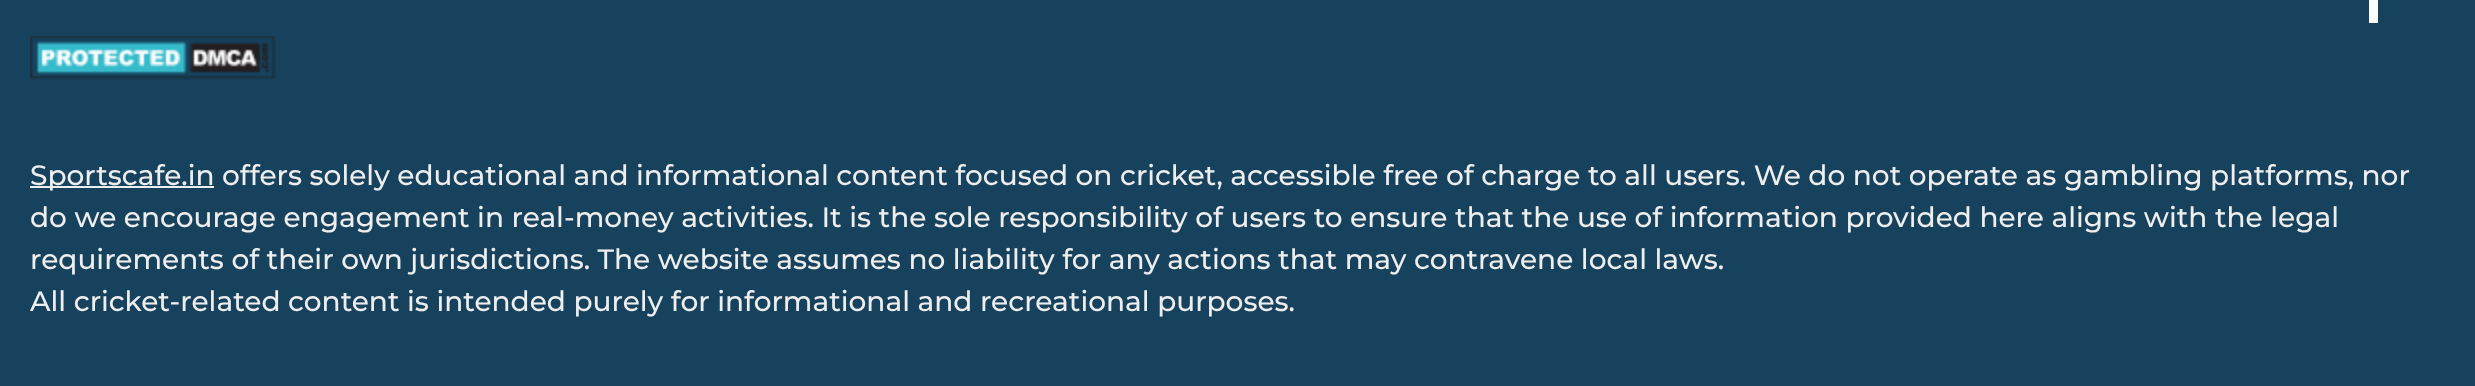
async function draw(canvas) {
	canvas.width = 2475;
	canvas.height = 386;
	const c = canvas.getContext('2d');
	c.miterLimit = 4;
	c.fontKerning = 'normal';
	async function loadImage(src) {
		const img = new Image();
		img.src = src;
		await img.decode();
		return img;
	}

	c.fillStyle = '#17425d';
	c.fillRect(0, 0, 2475, 386);
	c.fillStyle = '#fff';
	c.fillRect(2369, 0, 9, 23);
	c.drawImage(await loadImage('img1.png'), 30, 36, 246, 44);
	c.fillStyle = '#eee';
	c.fillRect(30, 186, 184, 2);
	c.font = '500 28px Montserrat';
	for (const [text, x, y] of [
		['Sportscafe.in offers solely educational and informational content focused on cricket, accessible free of charge to all users. We do not operate as gambling platforms, nor', 30, 185],
		['do we encourage engagement in real-money activities. It is the sole responsibility of users to ensure that the use of information provided here aligns with the legal', 30, 227],
		['requirements of their own jurisdictions. The website assumes no liability for any actions that may contravene local laws.', 30, 269],
		['All cricket-related content is intended purely for informational and recreational purposes.', 30, 311],
	]) {
		c.fillText(text, x, y);
	}
}

draw(document.querySelector('canvas'));
